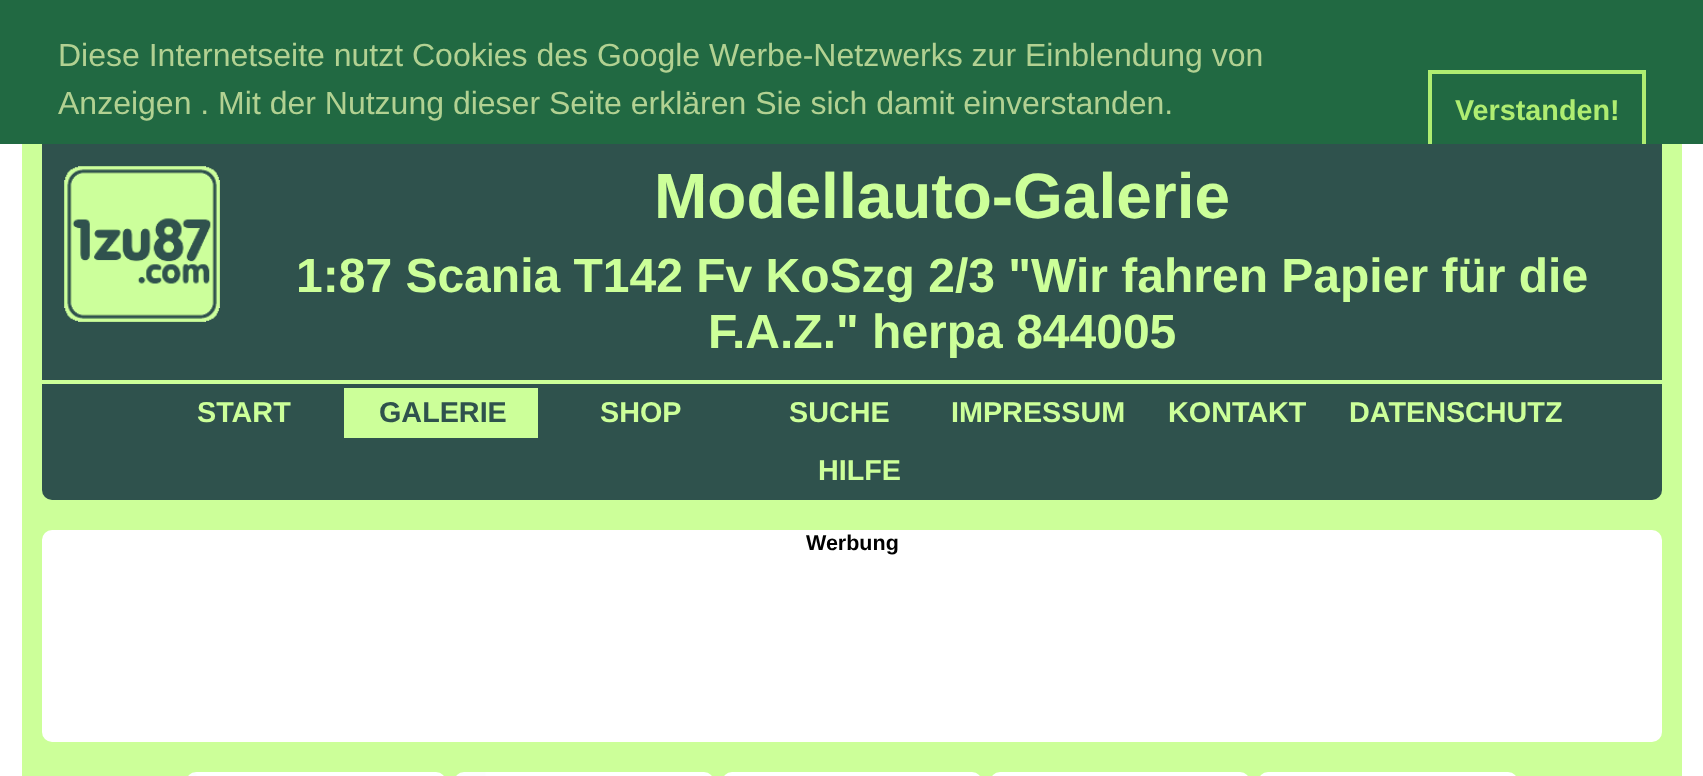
async function draw(canvas) {
	canvas.width = 1703;
	canvas.height = 776;
	const c = canvas.getContext('2d');
	c.miterLimit = 4;
	c.fontKerning = 'normal';
	async function loadImage(src) {
		const img = new Image();
		img.src = src;
		await img.decode();
		return img;
	}

	c.fillStyle = '#fff';
	c.fillRect(0, 0, 1703, 776);
	c.fillStyle = '#216942';
	c.fillRect(0, 0, 1703, 144);
	c.font = '32px Liberation Sans';
	c.fillStyle = '#b2d192';
	c.fillText('Diese Internetseite nutzt Cookies des Google Werbe-Netzwerks zur Einblendung von', 58, 66);
	c.fillText('Anzeigen . Mit der Nutzung dieser Seite erklären Sie sich damit einverstanden.', 58, 114);
	c.strokeStyle = '#afed71';
	c.lineWidth = 4;
	c.strokeRect(1430, 72, 214, 76);
	c.font = 'bold 28.75px Liberation Sans';
	c.fillStyle = '#afed71';
	c.fillText('Verstanden!', 1455, 120);
	c.fillStyle = '#cf9';
	c.fillRect(22, 144, 1660, 632);
	c.fillStyle = '#2f524d';
	c.beginPath();
	c.roundRect(42, 144, 1620, 356, [0, 0, 10, 10]);
	c.fill();
	c.drawImage(await loadImage('img1.png'), 64, 166, 156, 156);
	c.font = 'bold 64px Liberation Sans';
	c.fillStyle = '#cf9';
	c.fillText('Modellauto-Galerie', 654, 218);
	c.font = 'bold 48px Liberation Sans';
	c.fillText('1:87 Scania T142 Fv KoSzg 2/3 "Wir fahren Papier für die', 296, 292);
	c.fillText('F.A.Z." herpa 844005', 708, 348);
	c.fillRect(42, 380, 1620, 4);
	c.font = 'bold 28.75px Liberation Sans';
	c.fillText('START', 197, 422);
	c.fillRect(344, 388, 194, 50);
	c.fillStyle = '#2f524d';
	c.fillText('GALERIE', 379, 422);
	c.fillStyle = '#cf9';
	for (const [text, x, y] of [
		['SHOP', 600, 422],
		['SUCHE', 789, 422],
		['IMPRESSUM', 951, 422],
		['KONTAKT', 1168, 422],
		['DATENSCHUTZ', 1349, 422],
		['HILFE', 818, 480],
	]) {
		c.fillText(text, x, y);
	}
	c.fillStyle = '#fff';
	c.beginPath();
	c.roundRect(42, 530, 1620, 212, 10);
	c.fill();
	c.font = 'bold 21.5px Liberation Sans';
	c.fillStyle = '#000';
	c.fillText('Werbung', 806, 550);
	c.drawImage(await loadImage('img2.png'), 188, 772, 256, 4);
	c.drawImage(await loadImage('img3.png'), 456, 772, 256, 4);
	c.drawImage(await loadImage('img4.png'), 724, 772, 256, 4);
	c.drawImage(await loadImage('img4.png'), 992, 772, 256, 4);
	c.drawImage(await loadImage('img4.png'), 1260, 772, 256, 4);
}

draw(document.querySelector('canvas'));
